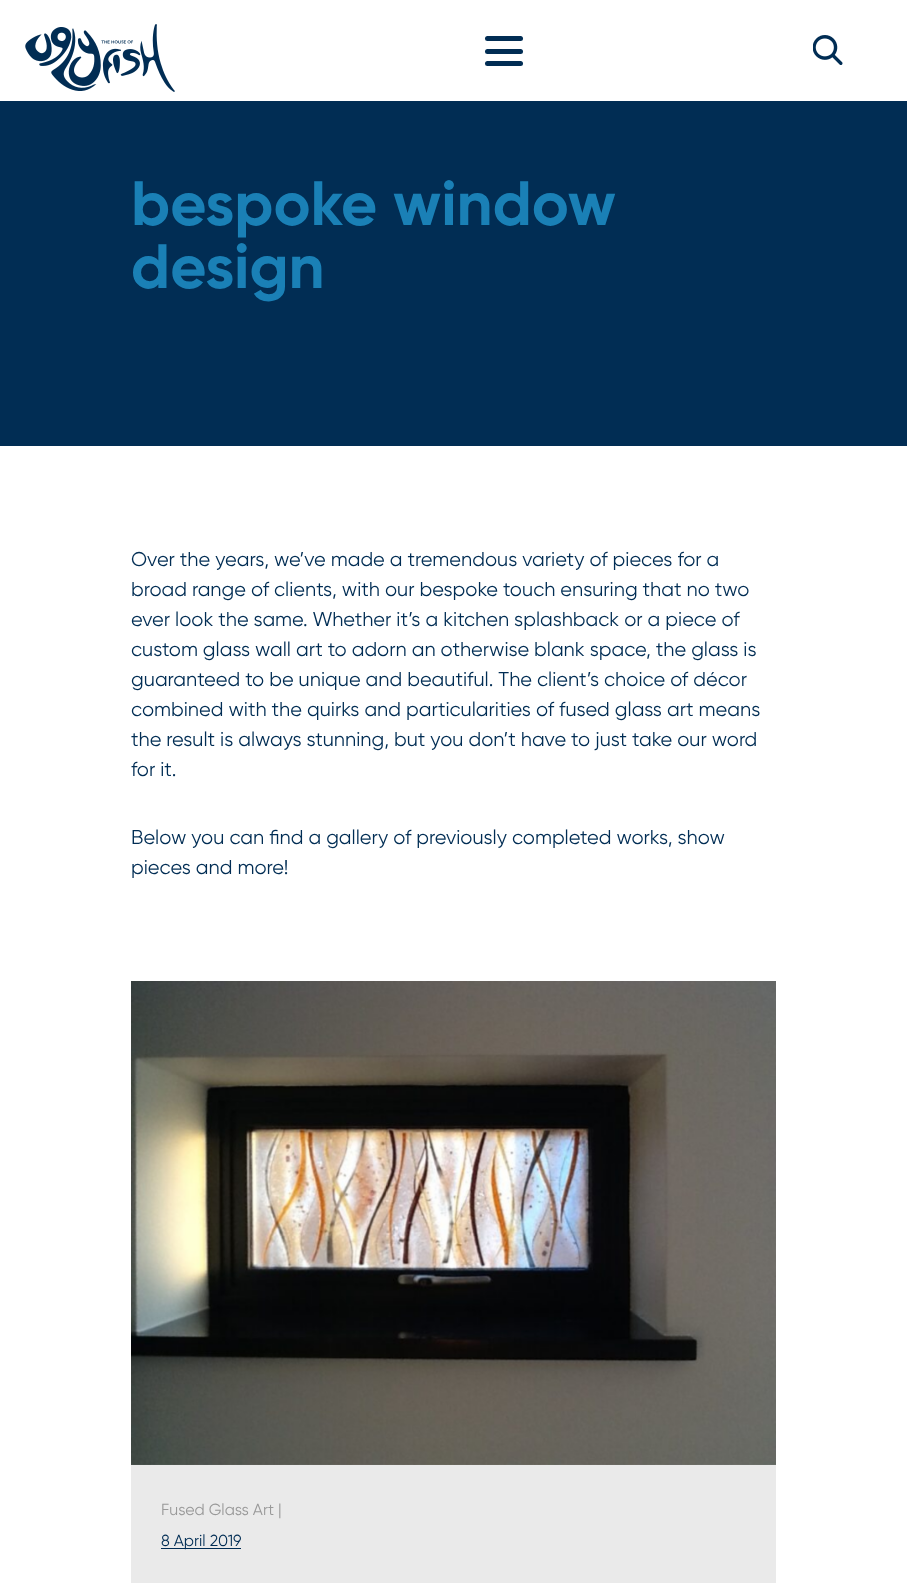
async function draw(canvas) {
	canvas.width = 907;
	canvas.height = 1583;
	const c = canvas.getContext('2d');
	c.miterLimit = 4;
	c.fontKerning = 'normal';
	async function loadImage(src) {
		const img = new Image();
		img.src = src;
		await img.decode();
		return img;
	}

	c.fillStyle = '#fff';
	c.fillRect(0, 0, 907, 1583);
	c.drawImage(await loadImage('img1.png'), 25, 24, 150, 68);
	c.fillStyle = '#012d54';
	c.beginPath();
	c.roundRect(485, 36, 38, 5, 2.5);
	c.fill();
	c.beginPath();
	c.roundRect(485, 49, 38, 5, 2.5);
	c.fill();
	c.beginPath();
	c.roundRect(485, 61, 38, 5, 2.5);
	c.fill();
	c.drawImage(await loadImage('img2.png'), 813, 35, 30, 30);
	c.fillRect(0, 101, 907, 345);
	c.font = 'bold 62.5px Gilroy';
	c.fillStyle = '#1a80b6';
	c.fillText('bespoke window', 131, 225);
	c.fillText('design', 131, 288);
	c.font = '20px Gilroy';
	c.fillStyle = '#012d54';
	for (const [text, x, y] of [
		['Over the years, we’ve made a tremendous variety of pieces for a', 131, 566],
		['broad range of clients, with our bespoke touch ensuring that no two', 131, 596],
		['ever look the same. Whether it’s a kitchen splashback or a piece of', 131, 626],
		['custom glass wall art to adorn an otherwise blank space, the glass is', 131, 656],
		['guaranteed to be unique and beautiful. The client’s choice of décor', 131, 686],
		['combined with the quirks and particularities of fused glass art means', 131, 716],
		['the result is always stunning, but you don’t have to just take our word', 131, 746],
		['for it.', 131, 776],
		['Below you can find a gallery of previously completed works, show', 131, 844],
		['pieces and more!', 131, 874],
	]) {
		c.fillText(text, x, y);
	}
	c.drawImage(await loadImage('img3.png'), 131, 981, 645, 484);
	c.drawImage(await loadImage('img4.png'), 131, 1464, 645, 1);
	c.fillStyle = '#eaeaea';
	c.fillRect(131, 1465, 645, 118);
	c.font = '16px Gilroy';
	c.fillStyle = '#999';
	c.fillText('Fused Glass Art |', 161, 1515);
	c.fillStyle = '#012d54';
	c.fillRect(161, 1548, 80, 1);
	c.fillText('8 April 2019', 161, 1546);
}

draw(document.querySelector('canvas'));
